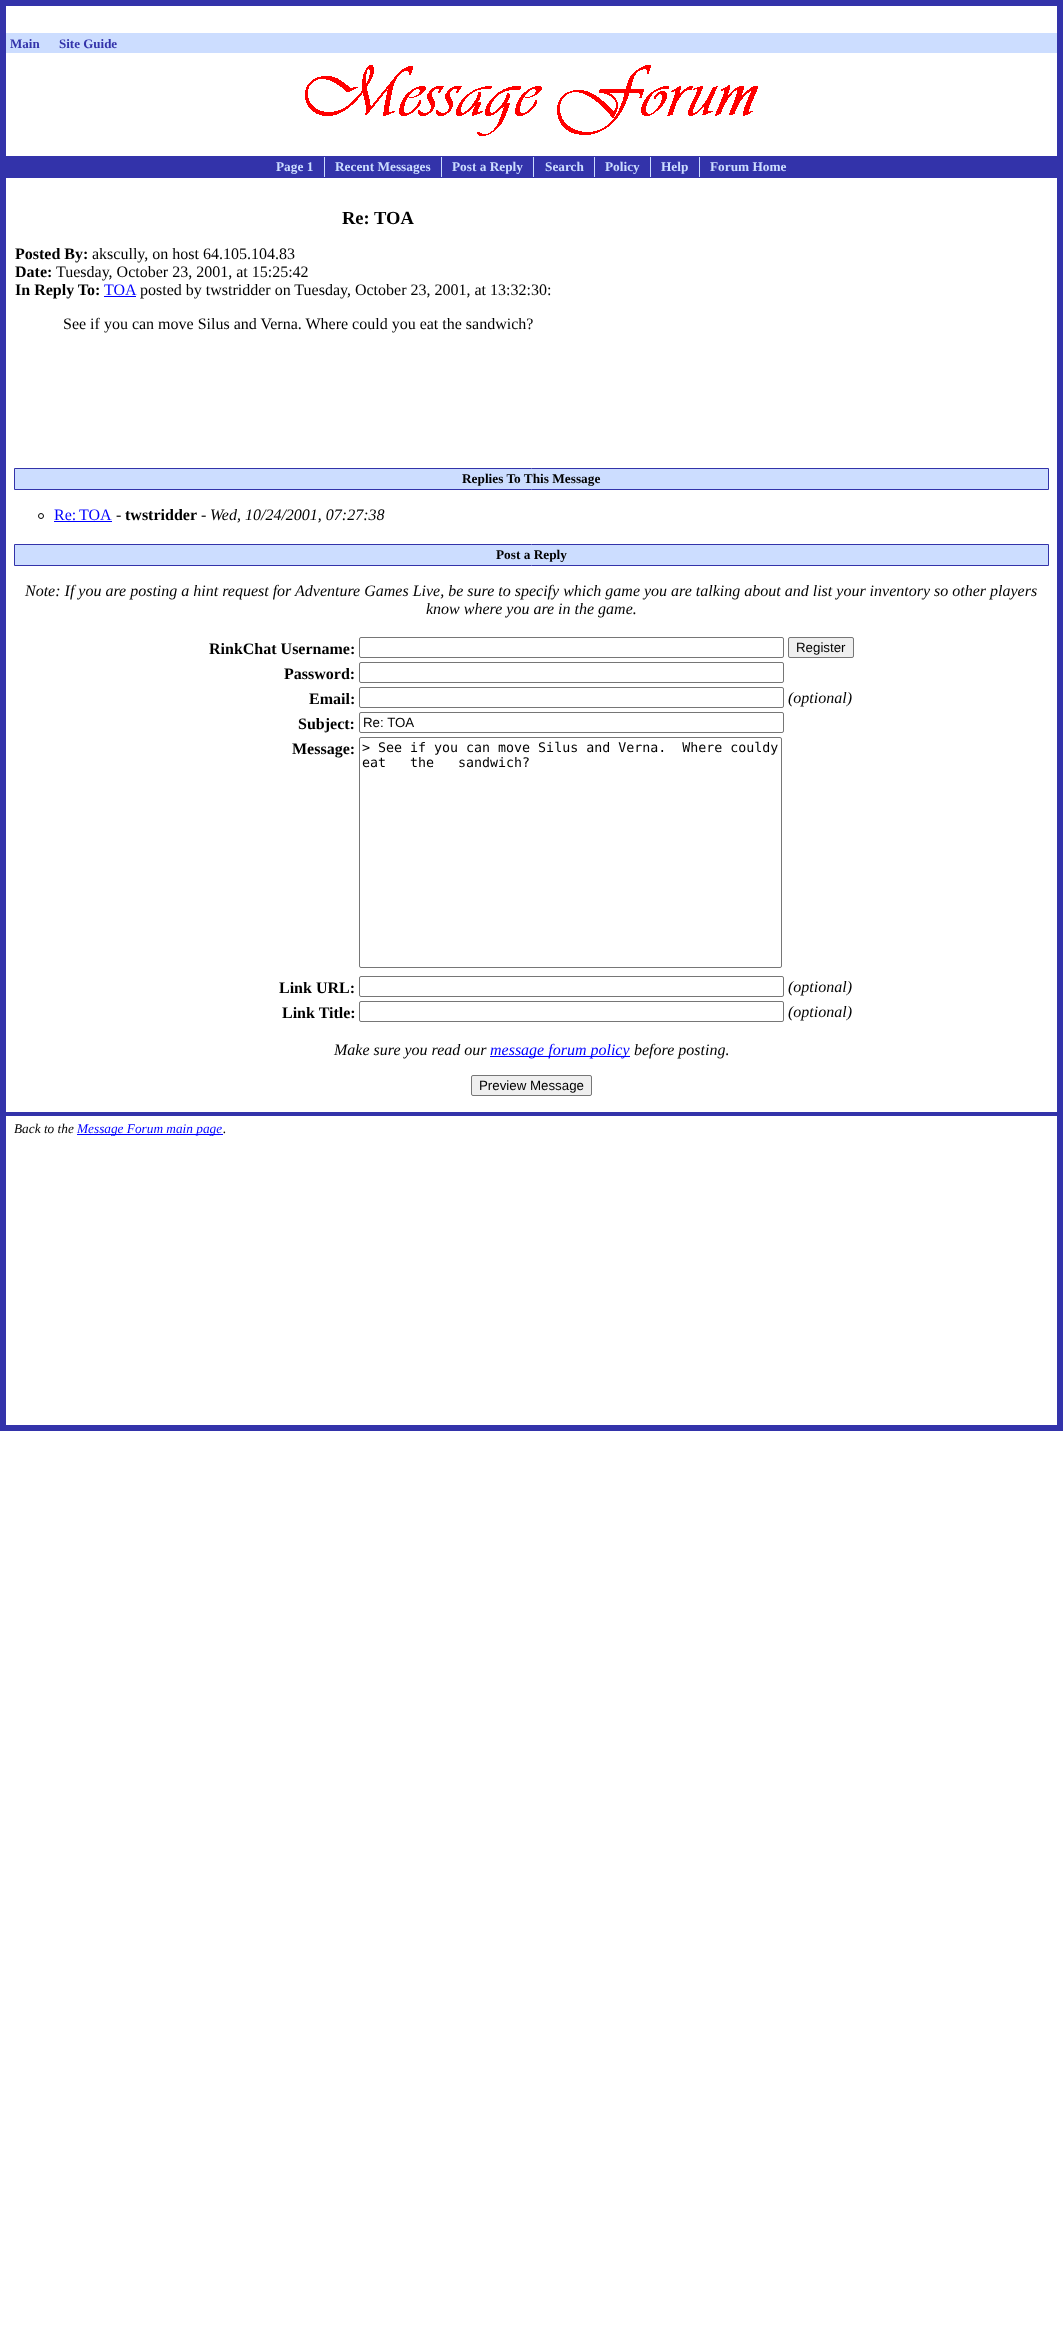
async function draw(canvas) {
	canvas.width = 1063;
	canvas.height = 2338;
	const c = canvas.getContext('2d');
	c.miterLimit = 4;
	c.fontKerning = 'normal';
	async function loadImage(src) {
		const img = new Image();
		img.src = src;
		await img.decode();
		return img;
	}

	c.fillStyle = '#fff';
	c.fillRect(0, 0, 1063, 2338);
	c.strokeStyle = '#33a';
	c.lineWidth = 6;
	c.strokeRect(3, 3, 1057, 1425);
	c.fillStyle = '#cdf';
	c.fillRect(6, 33, 1051, 20);
	c.font = 'bold 13px Liberation Serif';
	c.fillStyle = '#33a';
	c.fillText('Main', 10, 48);
	c.fillText('Site Guide', 59, 48);
	c.drawImage(await loadImage('img1.png'), 305, 65, 453, 71);
	c.fillRect(6, 156, 1051, 22);
	c.font = 'bold 13.3px Liberation Serif';
	c.fillStyle = '#cdf';
	c.fillText('Page 1', 276, 171);
	c.fillRect(324, 157, 1, 20);
	c.fillText('Recent Messages', 335, 171);
	c.fillRect(441, 157, 1, 20);
	c.fillText('Post a Reply', 452, 171);
	c.fillRect(533, 157, 1, 20);
	c.fillText('Search', 545, 171);
	c.fillRect(594, 157, 1, 20);
	c.fillText('Policy', 605, 171);
	c.fillRect(650, 157, 1, 20);
	c.fillText('Help', 661, 171);
	c.fillRect(699, 157, 1, 20);
	c.fillText('Forum Home', 710, 171);
	c.font = 'bold 18.5px Liberation Serif';
	c.fillStyle = '#000';
	c.fillText('Re: TOA', 342, 224);
	c.font = 'bold 16px Liberation Serif';
	c.fillText('Posted By:', 15, 259);
	c.font = '16px Liberation Serif';
	c.fillText('akscully, on host 64.105.104.83', 92, 259);
	c.font = 'bold 16px Liberation Serif';
	c.fillText('Date:', 15, 277);
	c.font = '16px Liberation Serif';
	c.fillText('Tuesday, October 23, 2001, at 15:25:42', 56, 277);
	c.font = 'bold 16px Liberation Serif';
	c.fillText('In Reply To:', 15, 295);
	c.font = '16px Liberation Serif';
	c.fillStyle = '#00f';
	c.fillText('TOA', 104, 295);
	c.fillRect(104, 296, 32, 1);
	c.fillStyle = '#000';
	c.fillText('posted by twstridder on Tuesday, October 23, 2001, at 13:32:30:', 140, 295);
	c.fillText('See if you can move Silus and Verna. Where could you eat the sandwich?', 63, 329);
	c.fillStyle = '#cdf';
	c.beginPath();
	c.rect(14.5, 468.5, 1034, 21);
	c.fill();
	c.lineWidth = 1;
	c.stroke();
	c.font = 'bold 13.3px Liberation Serif';
	c.fillStyle = '#000';
	c.fillText('Replies To This Message', 462, 483);
	c.beginPath();
	c.arc(41, 516, 2.5, 0, 2 * Math.PI);
	c.strokeStyle = '#000';
	c.stroke();
	c.wordSpacing = '-1px';
	c.font = '16px Liberation Serif';
	c.fillStyle = '#00f';
	c.fillText('Re: TOA', 54, 520);
	c.fillRect(54, 521, 58, 1);
	c.wordSpacing = '0px';
	c.fillStyle = '#000';
	c.fillText('-', 116, 520);
	c.font = 'bold 16px Liberation Serif';
	c.fillText('twstridder', 125, 520);
	c.font = '16px Liberation Serif';
	c.fillText('-', 201, 520);
	c.font = 'italic 16px Liberation Serif';
	c.fillText('Wed, 10/24/2001, 07:27:38', 210, 520);
	c.fillStyle = '#cdf';
	c.beginPath();
	c.rect(14.5, 544.5, 1034, 21);
	c.fill();
	c.strokeStyle = '#33a';
	c.stroke();
	c.font = 'bold 13.3px Liberation Serif';
	c.fillStyle = '#000';
	c.fillText('Post a Reply', 496, 559);
	c.font = 'italic 16px Liberation Serif';
	c.fillText('Note: If you are posting a hint request for Adventure Games Live, be sure to specify which game you are talking about and list your inventory so other players', 25, 596);
	c.fillText('know where you are in the game.', 426, 614);
	c.font = 'bold 16px Liberation Serif';
	c.fillText('RinkChat Username:', 209, 654);
	c.beginPath();
	c.roundRect(359.5, 637.5, 424, 20, 1.5);
	c.strokeStyle = '#767676';
	c.stroke();
	c.fillStyle = '#efefef';
	c.beginPath();
	c.roundRect(788.5, 637.5, 65, 20, 1.5);
	c.fill();
	c.stroke();
	c.font = '13.3px Liberation Sans';
	c.fillStyle = '#000';
	c.fillText('Register', 796, 652);
	c.font = 'bold 16px Liberation Serif';
	c.fillText('Password:', 284, 679);
	c.beginPath();
	c.roundRect(359.5, 662.5, 424, 20, 1.5);
	c.stroke();
	c.fillText('Email:', 309, 704);
	c.beginPath();
	c.roundRect(359.5, 687.5, 424, 20, 1.5);
	c.stroke();
	c.font = 'italic 16px Liberation Serif';
	c.fillText('(optional)', 788, 703);
	c.font = 'bold 16px Liberation Serif';
	c.fillText('Subject:', 298, 729);
	c.beginPath();
	c.roundRect(359.5, 712.5, 424, 20, 1.5);
	c.stroke();
	c.font = '13.3px Liberation Sans';
	c.fillText('Re: TOA', 363, 727);
	c.font = 'bold 16px Liberation Serif';
	c.fillText('Message:', 292, 754);
	c.beginPath();
	c.roundRect(359.5, 737.5, 422, 230, 1.5);
	c.stroke();
	c.font = '13.3px DejaVu Sans Mono';
	c.fillText('> See if you can move Silus and Verna.  Where couldy', 362, 752);
	c.wordSpacing = '16px';
	c.fillText('eat the sandwich?', 362, 767);
	c.wordSpacing = '0px';
	c.font = 'bold 16px Liberation Serif';
	c.fillText('Link URL:', 279, 993);
	c.beginPath();
	c.roundRect(359.5, 976.5, 424, 20, 1.5);
	c.stroke();
	c.font = 'italic 16px Liberation Serif';
	c.fillText('(optional)', 788, 992);
	c.font = 'bold 16px Liberation Serif';
	c.fillText('Link Title:', 282, 1018);
	c.beginPath();
	c.roundRect(359.5, 1001.5, 424, 20, 1.5);
	c.stroke();
	c.font = 'italic 16px Liberation Serif';
	c.fillText('(optional)', 788, 1017);
	c.fillText('Make sure you read our', 334, 1055);
	c.fillStyle = '#00f';
	c.fillRect(490, 1056, 140, 1);
	c.fillText('message forum policy', 490, 1055);
	c.fillStyle = '#000';
	c.fillText('before posting.', 634, 1055);
	c.fillStyle = '#efefef';
	c.beginPath();
	c.roundRect(471.5, 1075.5, 120, 20, 1.5);
	c.fill();
	c.stroke();
	c.font = '13.3px Liberation Sans';
	c.fillStyle = '#000';
	c.fillText('Preview Message', 479, 1090);
	c.fillStyle = '#33a';
	c.fillRect(6, 1112, 1051, 4);
	c.font = 'italic 13.3px Liberation Serif';
	c.fillStyle = '#000';
	c.fillText('Back to the', 14, 1133);
	c.fillStyle = '#00f';
	c.fillRect(77, 1134, 146, 1);
	c.fillText('Message Forum main page', 77, 1133);
	c.fillStyle = '#000';
	c.fillText('.', 223, 1133);
}

draw(document.querySelector('canvas'));
